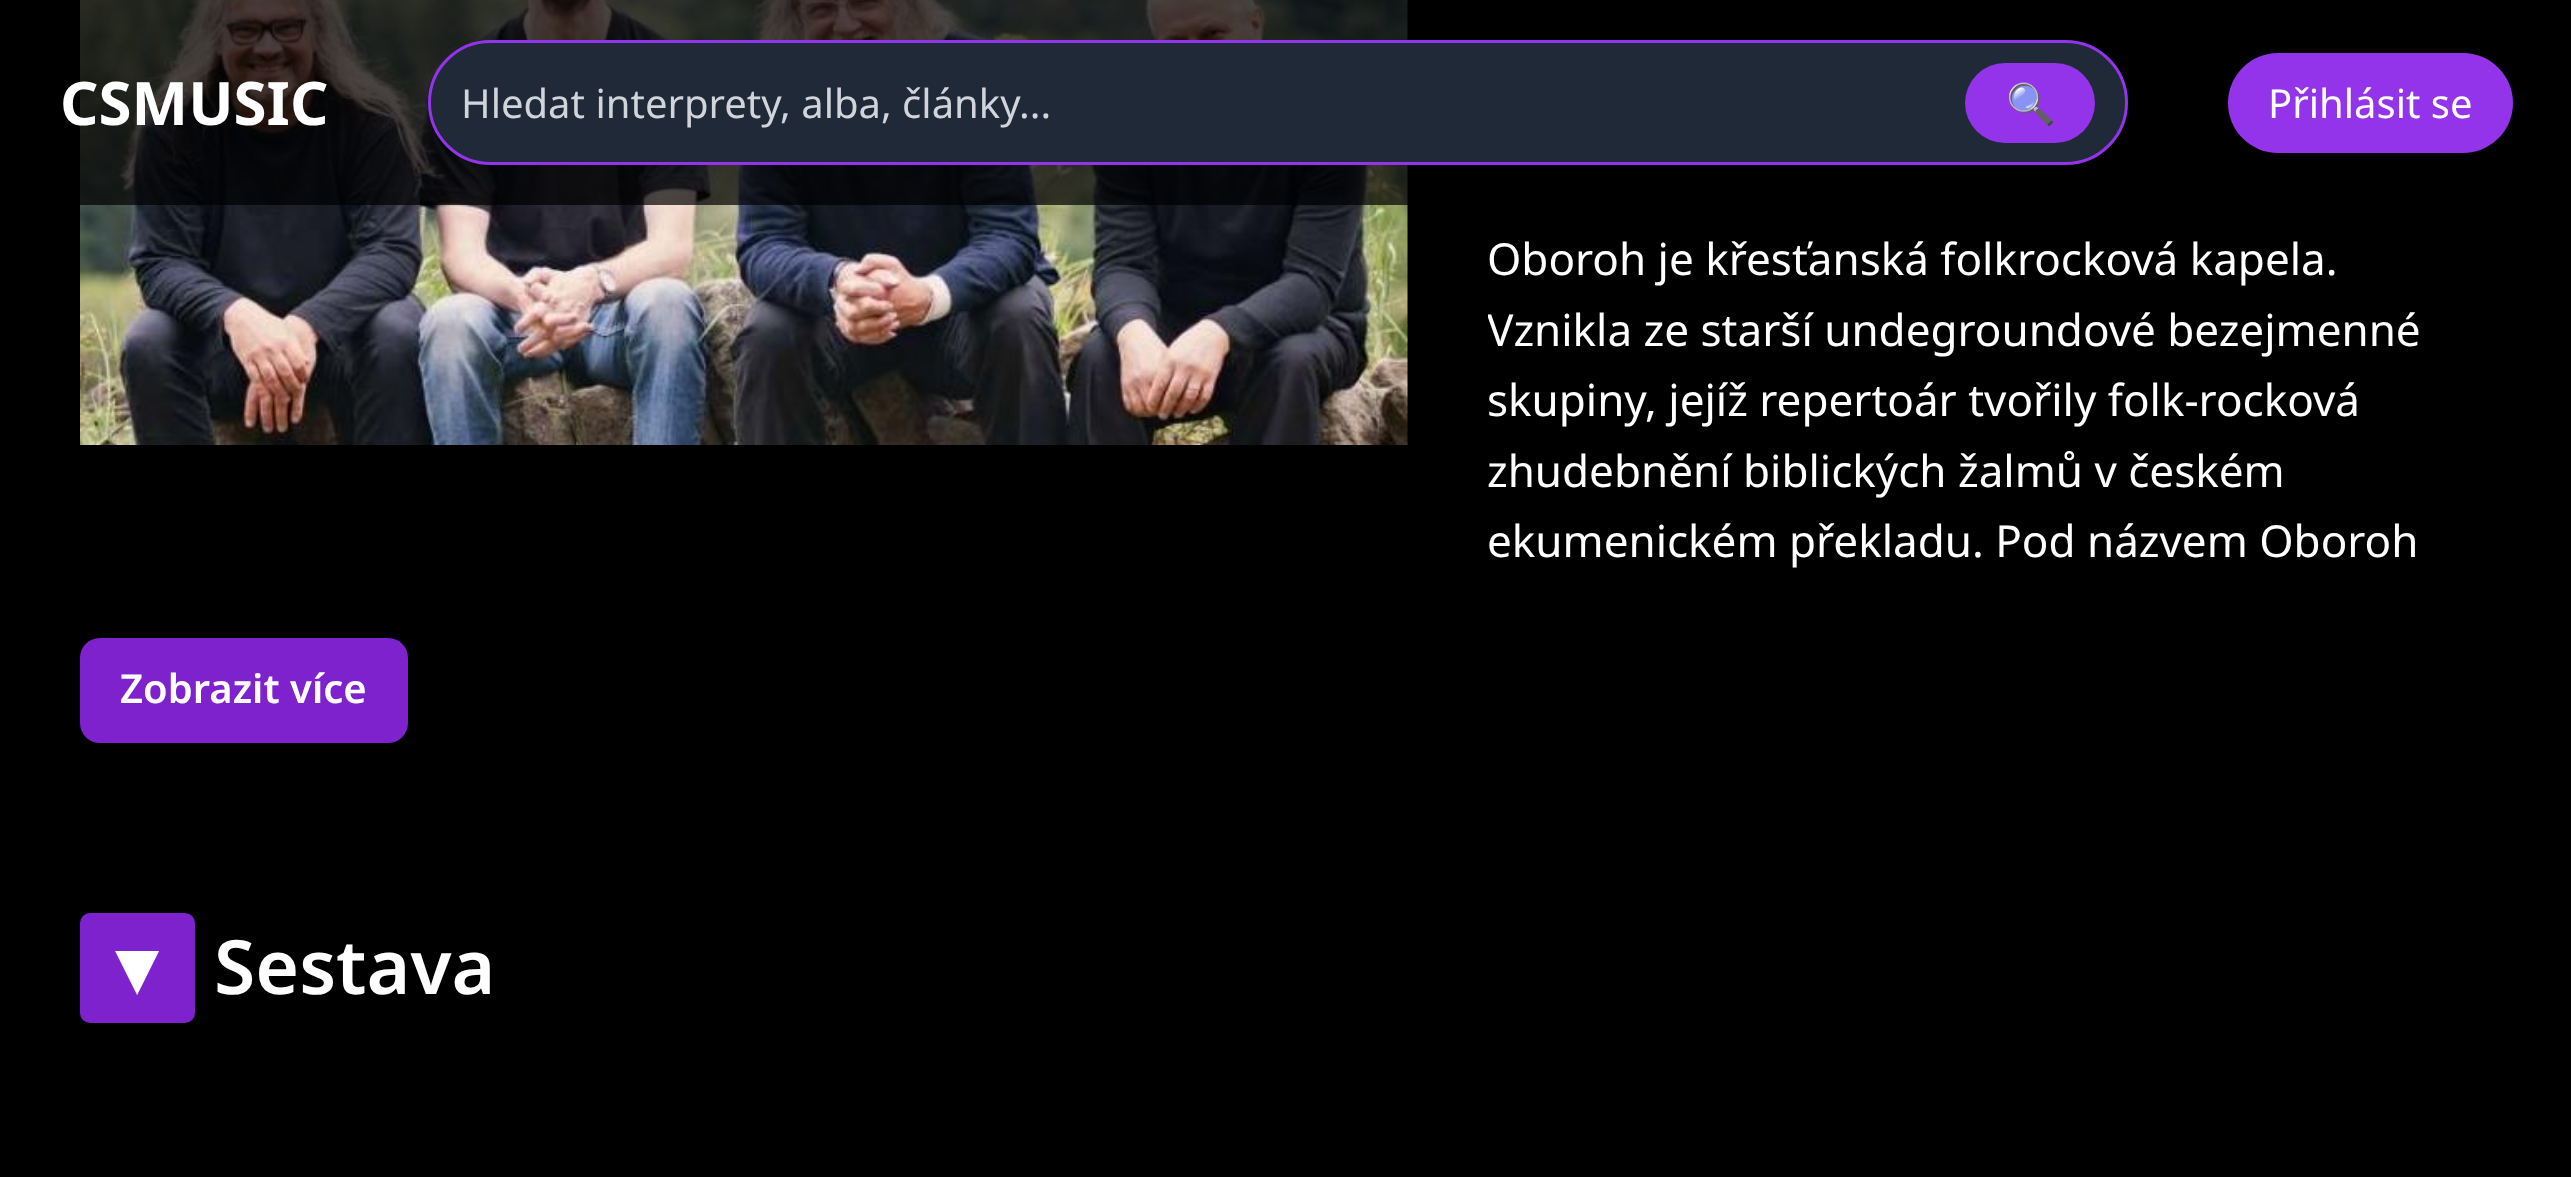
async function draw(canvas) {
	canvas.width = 2571;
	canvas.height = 1177;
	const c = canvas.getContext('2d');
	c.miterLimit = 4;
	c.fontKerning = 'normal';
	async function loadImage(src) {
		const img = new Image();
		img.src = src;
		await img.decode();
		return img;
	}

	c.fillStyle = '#000';
	c.fillRect(0, 0, 2571, 1177);
	c.drawImage(await loadImage('img1.png'), 80, 0, 1328, 445);
	c.fillStyle = '#000000b3';
	c.fillRect(80, 0, 1328, 205);
	c.font = 'bold 60px Noto Sans';
	c.fillStyle = '#fff';
	c.fillText('CSMUSIC', 60, 125);
	c.fillStyle = '#1f2937';
	c.beginPath();
	c.roundRect(429.5, 41.5, 1697, 122, 61);
	c.fill();
	c.strokeStyle = '#9333ea';
	c.lineWidth = 3;
	c.stroke();
	c.font = '40px Noto Sans';
	c.fillStyle = '#d1d5db';
	c.fillText('Hledat interprety, alba, články...', 461, 118);
	c.fillStyle = '#9333ea';
	c.beginPath();
	c.roundRect(1965, 63, 130, 80, 40);
	c.fill();
	c.font = '40px Noto Color Emoji';
	c.fillStyle = '#fff';
	c.fillText('🔍', 2006, 118);
	c.fillStyle = '#9333ea';
	c.beginPath();
	c.roundRect(2228, 53, 285, 100, 50);
	c.fill();
	c.font = '40px Noto Sans';
	c.fillStyle = '#fff';
	c.fillText('Přihlásit se', 2268, 118);
	c.font = '44px Noto Sans';
	c.fillText('Oboroh je křesťanská folkrocková kapela.', 1487, 275);
	c.save();
	c.beginPath();
	c.rect(1488, 223, 1005, 375);
	c.clip();
	c.fillText('Vznikla ze starší undegroundové bezejmenné', 1487, 346);
	c.restore();
	for (const [text, x, y] of [
		['skupiny, jejíž repertoár tvořily folk-rocková', 1487, 416],
		['zhudebnění biblických žalmů v českém', 1487, 487],
		['ekumenickém překladu. Pod názvem Oboroh', 1487, 557],
	]) {
		c.fillText(text, x, y);
	}
	c.fillStyle = '#7e22ce';
	c.beginPath();
	c.roundRect(80, 638, 328, 105, 20);
	c.fill();
	c.font = '600 40px Noto Sans';
	c.fillStyle = '#fff';
	c.fillText('Zobrazit více', 120, 703);
	c.fillStyle = '#7e22ce';
	c.beginPath();
	c.roundRect(80, 913, 115, 110, 10);
	c.fill();
	c.font = 'bold 75px Liberation Sans';
	c.fillStyle = '#fff';
	c.fillText('▼', 100, 994);
	c.font = '600 75px Noto Sans';
	c.fillText('Sestava', 214, 994);
}

draw(document.querySelector('canvas'));
